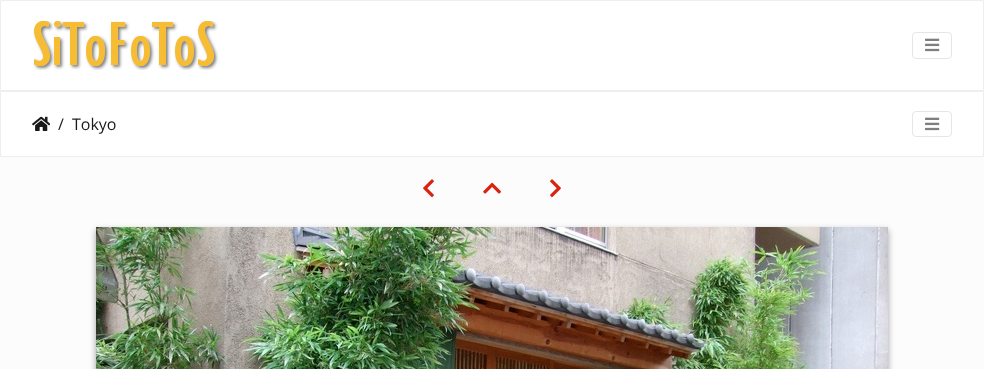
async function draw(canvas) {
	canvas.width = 984;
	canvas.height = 369;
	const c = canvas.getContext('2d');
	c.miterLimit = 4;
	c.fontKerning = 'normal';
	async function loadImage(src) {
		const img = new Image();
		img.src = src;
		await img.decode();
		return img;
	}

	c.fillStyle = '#fcfcfc';
	c.fillRect(0, 0, 984, 369);
	c.fillStyle = '#fff';
	c.beginPath();
	c.rect(0.5, 0.5, 983, 90);
	c.fill();
	c.strokeStyle = '#eee';
	c.stroke();
	c.drawImage(await loadImage('img1.png'), 33, 21, 186, 49);
	c.beginPath();
	c.roundRect(912.5, 32.5, 39, 26, 3.5);
	c.strokeStyle = '#e6e6e6';
	c.stroke();
	c.drawImage(await loadImage('img2.png'), 925, 38, 15, 14);
	c.beginPath();
	c.rect(0.5, 91.5, 983, 65);
	c.fill();
	c.strokeStyle = '#eee';
	c.stroke();
	c.drawImage(await loadImage('img3.png'), 32, 116, 18, 15);
	c.font = '16px Open Sans';
	c.fillStyle = '#1a1a1a';
	c.fillText('/', 58, 130);
	c.fillText('Tokyo', 72, 130);
	c.beginPath();
	c.roundRect(912.5, 111.5, 39, 25, 3.5);
	c.strokeStyle = '#e6e6e6';
	c.stroke();
	c.drawImage(await loadImage('img2.png'), 925, 117, 15, 14);
	c.drawImage(await loadImage('img4.png'), 423, 179, 11, 18);
	c.drawImage(await loadImage('img5.png'), 483, 182, 18, 12);
	c.drawImage(await loadImage('img6.png'), 550, 179, 11, 18);
	c.fillStyle = '#0000003b';
	c.filter = 'blur(3px)';
	c.beginPath();
	c.rect(96, 230, 792, 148);
	c.fill();
	c.filter = 'none';
	c.fillStyle = '#00000029';
	c.filter = 'blur(3px)';
	c.beginPath();
	c.rect(96, 230, 792, 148);
	c.fill();
	c.filter = 'none';
	c.drawImage(await loadImage('img7.png'), 96, 227, 792, 142);
}

draw(document.querySelector('canvas'));
